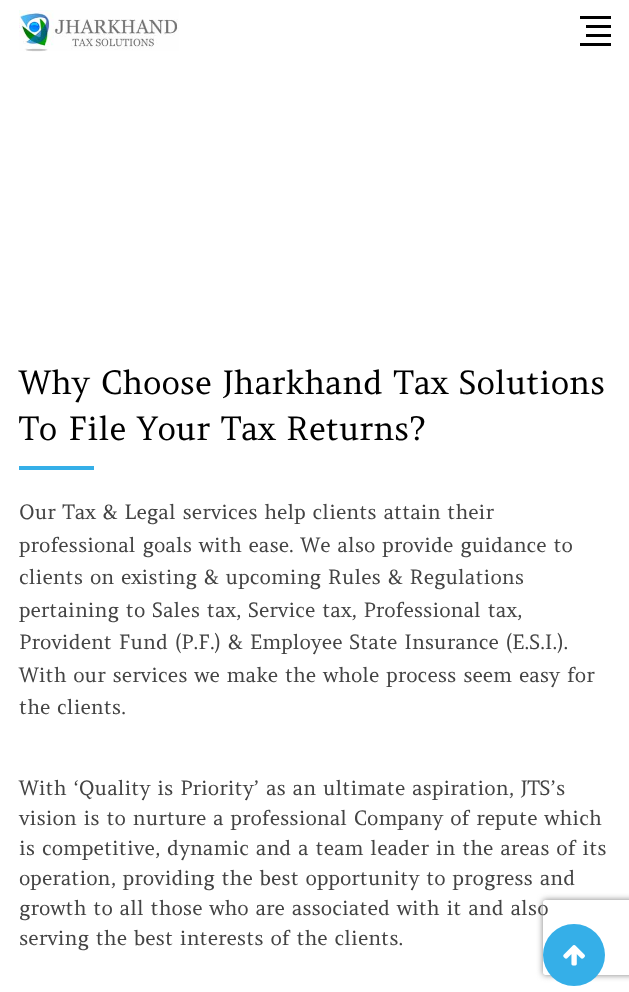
async function draw(canvas) {
	canvas.width = 629;
	canvas.height = 992;
	const c = canvas.getContext('2d');
	c.miterLimit = 4;
	c.fontKerning = 'normal';
	async function loadImage(src) {
		const img = new Image();
		img.src = src;
		await img.decode();
		return img;
	}

	c.fillStyle = '#fff';
	c.fillRect(0, 0, 629, 992);
	c.drawImage(await loadImage('img1.png'), 19, 10, 160, 42);
	for (const [x, y, w, h, color] of [
		[580, 16, 31, 3, '#000'],
		[586, 25, 25, 3, '#000'],
		[586, 34, 25, 3, '#000'],
		[580, 43, 31, 3, '#000'],
	]) {
		c.fillStyle = color;
		c.fillRect(x, y, w, h);
	}
	c.font = '32.5px Amethysta';
	c.fillText('Why Choose Jharkhand Tax Solutions', 19, 394);
	c.fillText('To File Your Tax Returns?', 19, 440);
	c.fillStyle = '#35afe8';
	c.fillRect(19, 466, 75, 4);
	c.font = '20px Amethysta';
	c.fillStyle = '#444';
	for (const [text, x, y] of [
		['Our Tax & Legal services help clients attain their', 19, 519],
		['professional goals with ease. We also provide guidance to', 19, 552],
		['clients on existing & upcoming Rules & Regulations', 19, 584],
		['pertaining to Sales tax, Service tax, Professional tax,', 19, 617],
		['Provident Fund (P.F.) & Employee State Insurance (E.S.I.).', 19, 649],
		['With our services we make the whole process seem easy for', 19, 682],
		['the clients.', 19, 714],
		['With ‘Quality is Priority’ as an ultimate aspiration, JTS’s', 19, 795],
		['vision is to nurture a professional Company of repute which', 19, 825],
		['is competitive, dynamic and a team leader in the areas of its', 19, 855],
		['operation, providing the best opportunity to progress and', 19, 885],
		['growth to all those who are associated with it and also', 19, 915],
		['serving the best interests of the clients.', 19, 945],
	]) {
		c.fillText(text, x, y);
	}
	c.save();
	c.beginPath();
	c.moveTo(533, 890);
	c.lineTo(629, 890);
	c.lineTo(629, 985);
	c.lineTo(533, 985);
	c.closePath();
	c.moveTo(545.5, 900);
	c.lineTo(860.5, 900);
	c.bezierCurveTo(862, 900, 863, 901, 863, 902.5);
	c.lineTo(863, 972.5);
	c.bezierCurveTo(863, 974, 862, 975, 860.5, 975);
	c.lineTo(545.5, 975);
	c.bezierCurveTo(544, 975, 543, 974, 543, 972.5);
	c.lineTo(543, 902.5);
	c.bezierCurveTo(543, 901, 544, 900, 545.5, 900);
	c.closePath();
	c.clip('evenodd');
	c.fillStyle = '#808080';
	c.filter = 'blur(3px)';
	c.beginPath();
	c.roundRect(543, 900, 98, 75, 2.5);
	c.fill();
	c.filter = 'none';
	c.restore();
	c.fillStyle = '#35afe8';
	c.beginPath();
	c.arc(574, 955, 31, 0, 2 * Math.PI);
	c.fill();
	c.drawImage(await loadImage('img2.png'), 563, 945, 22, 21);
}

draw(document.querySelector('canvas'));
